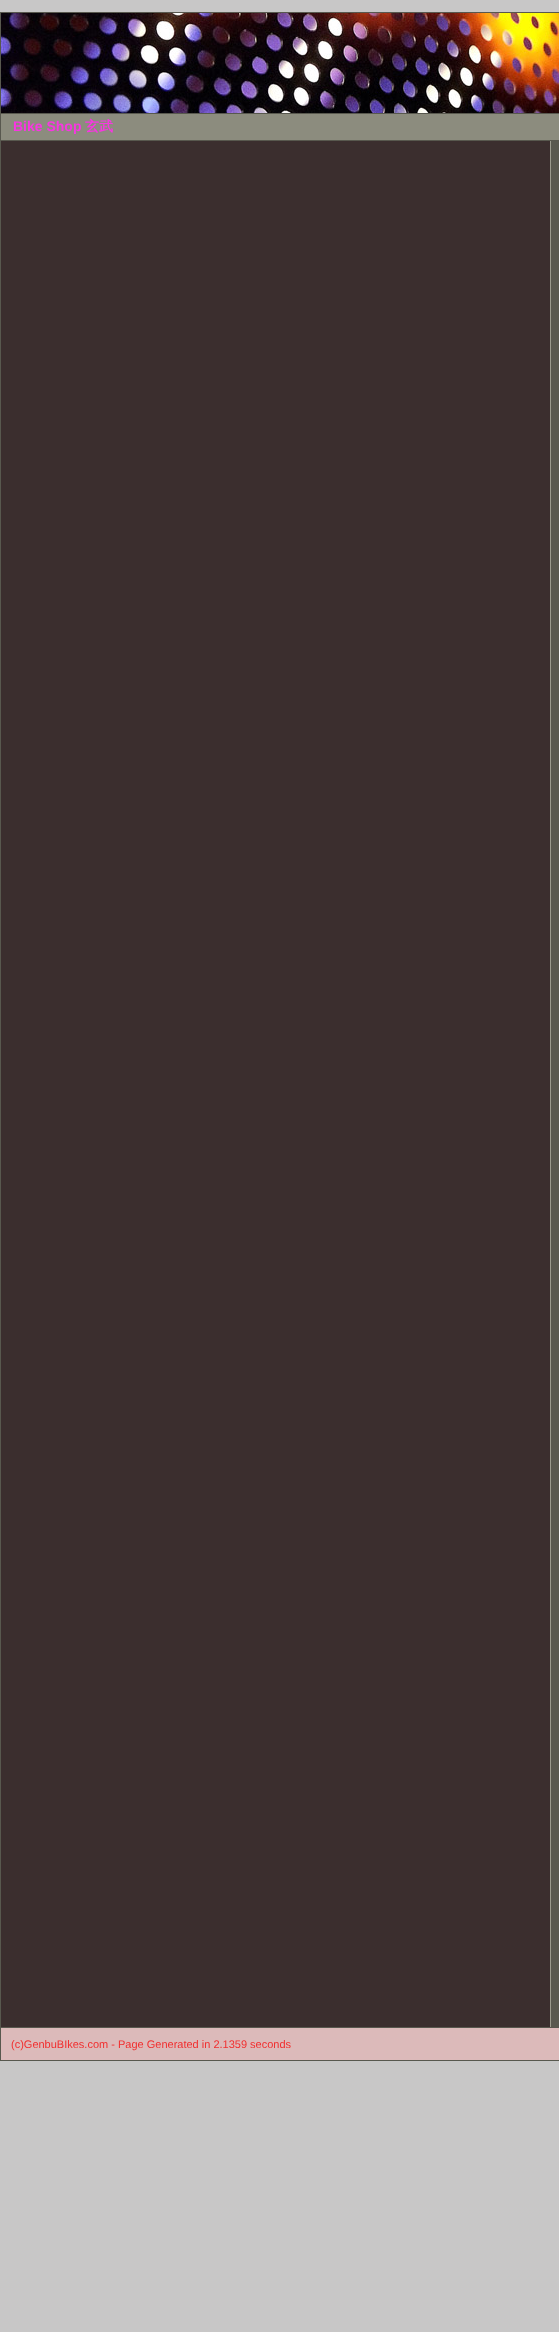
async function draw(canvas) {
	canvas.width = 559;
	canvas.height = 2332;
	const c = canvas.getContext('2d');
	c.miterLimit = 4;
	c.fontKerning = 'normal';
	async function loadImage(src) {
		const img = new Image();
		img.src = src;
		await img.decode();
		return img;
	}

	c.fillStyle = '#c8c7c7';
	c.fillRect(0, 0, 559, 2332);
	c.strokeStyle = '#58584e';
	c.strokeRect(0.5, 12.5, 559, 2048);
	c.fillStyle = '#8c8c7e';
	c.fillRect(1, 114, 558, 26);
	c.fillStyle = '#58584e';
	c.fillRect(1, 113, 558, 1);
	c.drawImage(await loadImage('img1.png'), 1, 13, 558, 100);
	c.fillRect(1, 140, 558, 1);
	c.font = 'bold 14px Liberation Sans';
	c.fillStyle = '#f836e1';
	c.fillText('Bike Shop', 13, 131);
	c.font = 'bold 14px WenQuanYi Zen Hei';
	c.fillText('玄武', 85, 131);
	for (const [x, y, w, h, color] of [
		[1, 141, 549, 1886, '#3b2e2e'],
		[551, 141, 8, 1886, '#59594f'],
		[550, 141, 1, 1886, '#9a9a8c'],
		[1, 2028, 558, 32, '#dcbaba'],
		[1, 2027, 558, 1, '#58584e'],
	]) {
		c.fillStyle = color;
		c.fillRect(x, y, w, h);
	}
	c.font = '11px Liberation Sans';
	c.fillStyle = '#f12f2f';
	c.fillText('(c)GenbuBIkes.com - Page Generated in 2.1359 seconds', 11, 2048);
}

draw(document.querySelector('canvas'));
